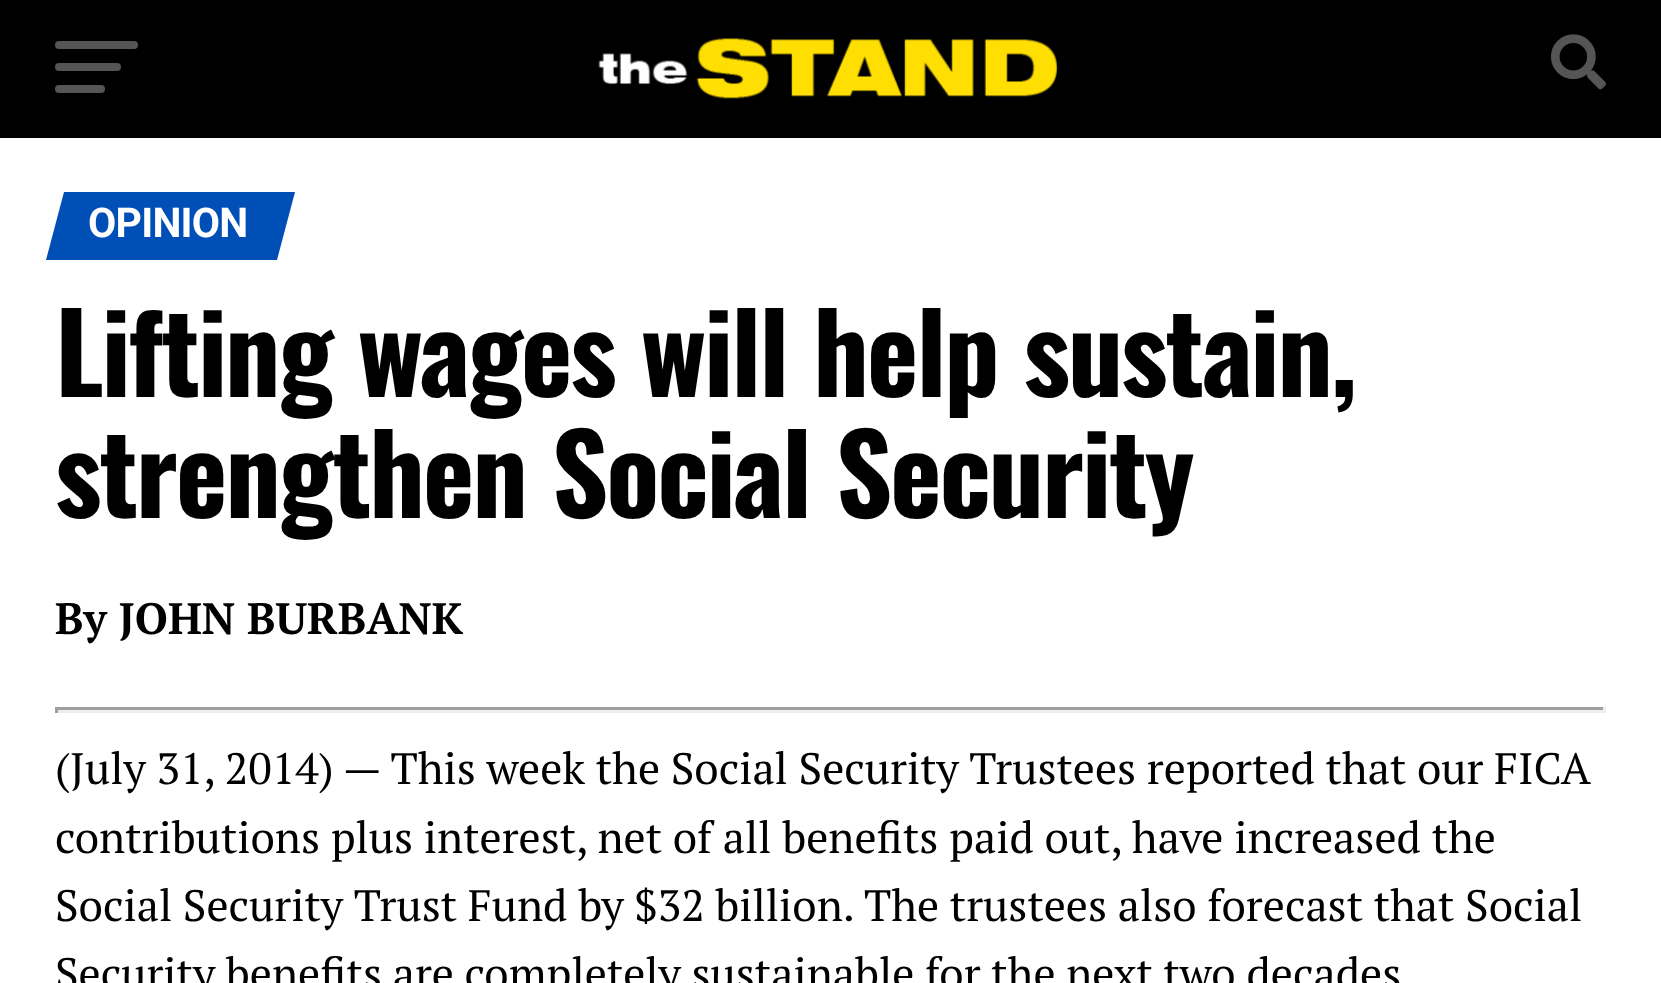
async function draw(canvas) {
	canvas.width = 1661;
	canvas.height = 983;
	const c = canvas.getContext('2d');
	c.miterLimit = 4;
	c.fontKerning = 'normal';
	async function loadImage(src) {
		const img = new Image();
		img.src = src;
		await img.decode();
		return img;
	}

	c.fillStyle = '#fff';
	c.fillRect(0, 0, 1661, 983);
	c.fillStyle = '#000';
	c.fillRect(0, 0, 1661, 138);
	c.fillStyle = '#555';
	c.beginPath();
	c.roundRect(55, 41, 83, 8, 4);
	c.fill();
	c.beginPath();
	c.roundRect(55, 63, 66, 8, 4);
	c.fill();
	c.beginPath();
	c.roundRect(55, 85, 50, 8, 4);
	c.fill();
	c.drawImage(await loadImage('img1.png'), 598, 38, 460, 61);
	c.drawImage(await loadImage('img2.png'), 1551, 34, 55, 56);
	c.fillStyle = '#004fb7';
	c.beginPath();
	c.moveTo(64, 192);
	c.lineTo(295, 192);
	c.lineTo(277, 260);
	c.lineTo(46, 260);
	c.closePath();
	c.fill();
	c.letterSpacing = '-0.75px';
	c.font = 'bold 41px Roboto';
	c.fillStyle = '#fff';
	c.fillText('OPINION', 88, 237);
	c.letterSpacing = '-2.2px';
	c.font = 'bold 110px Oswald';
	c.fillStyle = '#000';
	c.fillText('Lifting wages will help sustain,', 55, 397);
	c.fillText('strengthen Social Security', 55, 518);
	c.letterSpacing = '0px';
	c.font = 'bold 44px PT Serif';
	c.fillText('By JOHN BURBANK', 55, 634);
	for (const [x, y, w, h, color] of [
		[55, 707, 1551, 3, '#9f9f9f'],
		[1603, 707, 3, 6, '#eee'],
		[55, 710, 1551, 3, '#eee'],
		[55, 707, 3, 6, '#9f9f9f'],
	]) {
		c.fillStyle = color;
		c.fillRect(x, y, w, h);
	}
	c.font = '44px PT Serif';
	c.fillStyle = '#000';
	for (const [text, x, y] of [
		['(July 31, 2014) — This week the Social Security Trustees reported that our FICA', 55, 784],
		['contributions plus interest, net of all benefits paid out, have increased the', 55, 853],
		['Social Security Trust Fund by $32 billion. The trustees also forecast that Social', 55, 921],
		['Security benefits are completely sustainable for the next two decades', 55, 989],
	]) {
		c.fillText(text, x, y);
	}
}

draw(document.querySelector('canvas'));
